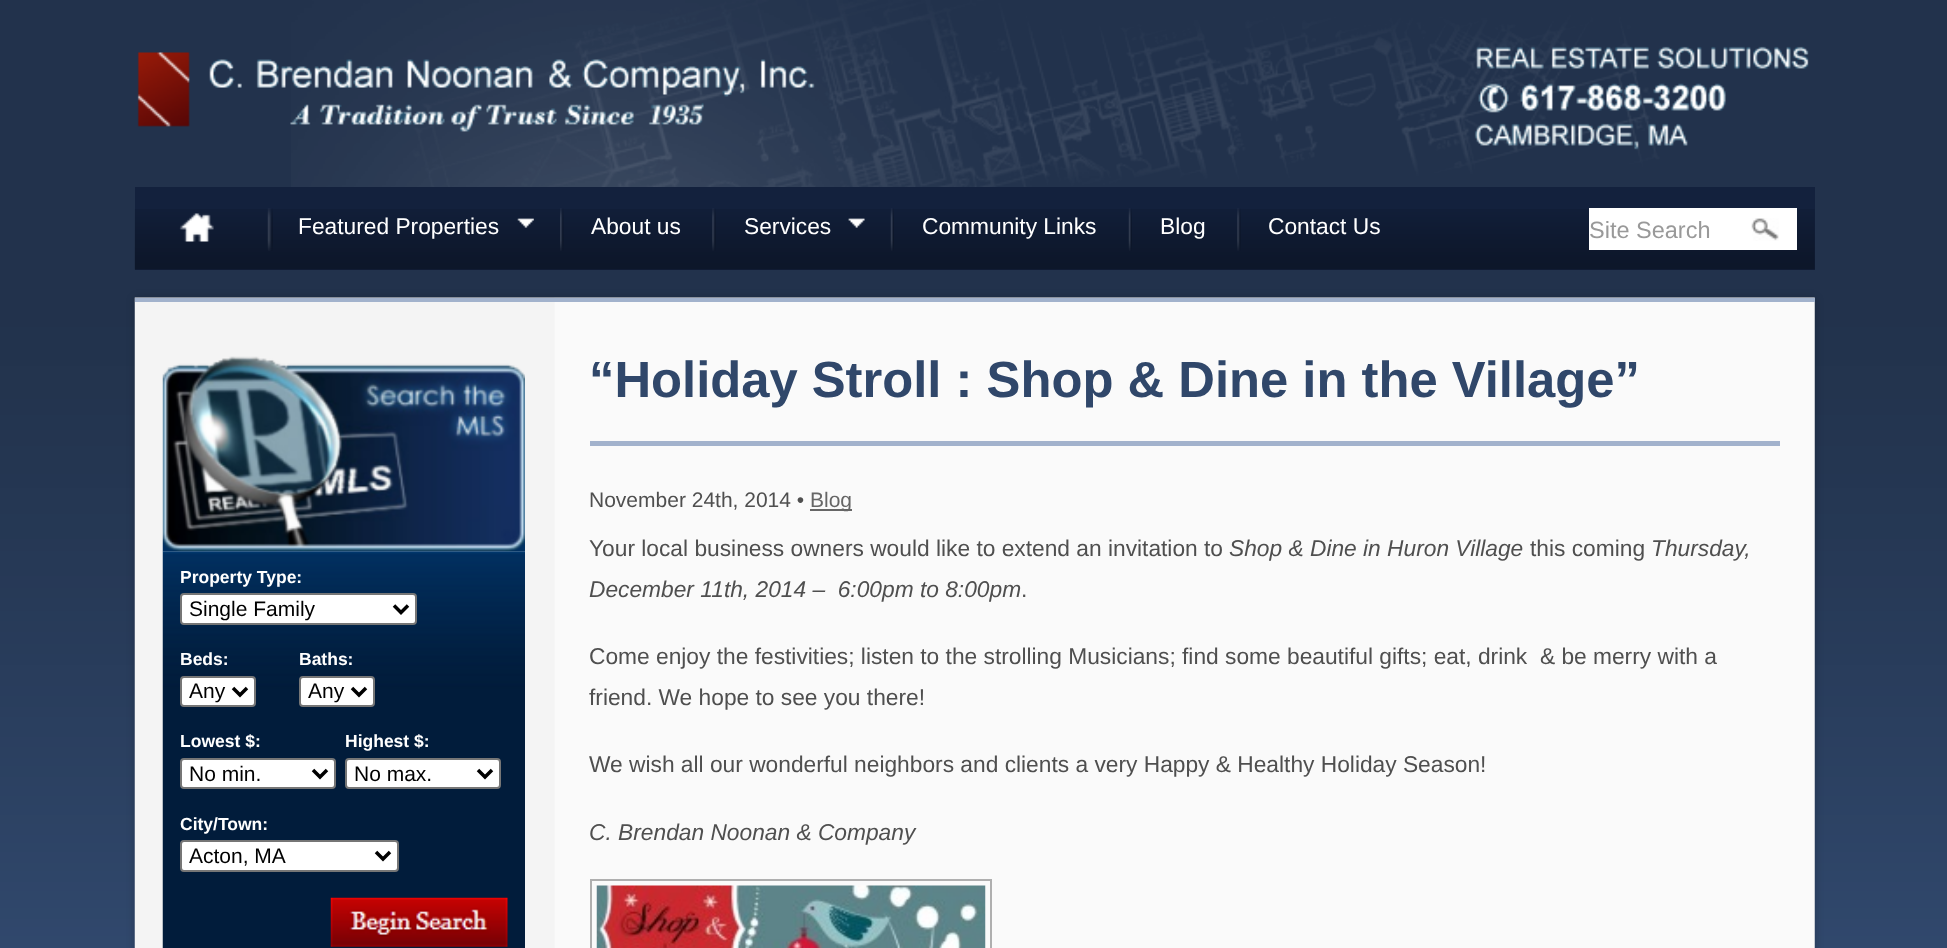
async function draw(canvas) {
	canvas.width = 1947;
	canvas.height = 948;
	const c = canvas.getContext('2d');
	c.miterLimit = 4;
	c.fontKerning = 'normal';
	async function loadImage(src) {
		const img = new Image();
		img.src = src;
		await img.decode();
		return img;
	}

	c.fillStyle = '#446598';
	c.fillRect(0, 0, 1947, 948);
	c.drawImage(await loadImage('img1.png'), 0, 0, 1947, 948);
	c.drawImage(await loadImage('img2.png'), 291, 0, 1369, 187);
	c.drawImage(await loadImage('img3.png'), 137, 52, 678, 80);
	c.drawImage(await loadImage('img4.png'), 1474, 46, 335, 104);
	c.fillStyle = '#13213d';
	c.fillRect(135, 187, 1680, 83);
	c.drawImage(await loadImage('img5.png'), 134, 209, 1681, 61);
	c.drawImage(await loadImage('img6.png'), 179, 213, 35, 29);
	c.drawImage(await loadImage('img7.png'), 267, 208, 6, 43);
	c.font = '22.75px Liberation Sans';
	c.fillStyle = '#fff';
	c.fillText('Featured Properties', 298, 234);
	c.drawImage(await loadImage('img8.png'), 517, 218, 17, 10);
	c.drawImage(await loadImage('img9.png'), 560, 208, 4, 43);
	c.fillText('About us', 591, 234);
	c.drawImage(await loadImage('img10.png'), 712, 208, 4, 43);
	c.fillText('Services', 744, 234);
	c.drawImage(await loadImage('img11.png'), 848, 218, 17, 10);
	c.drawImage(await loadImage('img12.png'), 890, 208, 4, 43);
	c.fillText('Community Links', 922, 234);
	c.drawImage(await loadImage('img13.png'), 1128, 208, 4, 43);
	c.fillText('Blog', 1160, 234);
	c.drawImage(await loadImage('img10.png'), 1237, 208, 4, 43);
	c.fillText('Contact Us', 1268, 234);
	c.fillRect(1589, 208, 208, 42);
	c.font = '23.5px Liberation Sans';
	c.fillStyle = '#999';
	c.fillText('Site Search', 1589, 238);
	c.drawImage(await loadImage('img14.png'), 1751, 218, 28, 23);
	c.fillStyle = '#00000033';
	c.filter = 'blur(4.5px)';
	c.beginPath();
	c.rect(135, 298, 1680, 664);
	c.fill();
	c.filter = 'none';
	c.drawImage(await loadImage('img15.png'), 134, 297, 1681, 651);
	c.fillStyle = '#a2b2cc';
	c.fillRect(135, 298, 1680, 4);
	c.drawImage(await loadImage('img16.png'), 162, 356, 363, 196);
	c.drawImage(await loadImage('img17.png'), 162, 551, 363, 397);
	c.font = 'bold 17.5px Liberation Sans';
	c.fillStyle = '#fff';
	c.fillText('Property Type:', 180, 583);
	c.beginPath();
	c.roundRect(181, 594, 235, 30, 3);
	c.fill();
	c.strokeStyle = '#767676';
	c.lineWidth = 2;
	c.stroke();
	c.beginPath();
	c.moveTo(394, 605.5);
	c.lineTo(401, 612.5);
	c.lineTo(408, 605.5);
	c.strokeStyle = '#000';
	c.lineWidth = 3.5;
	c.stroke();
	c.font = '21px Liberation Sans';
	c.fillStyle = '#000';
	c.fillText('Single Family', 189, 616);
	c.font = 'bold 17.5px Liberation Sans';
	c.fillStyle = '#fff';
	c.fillText('Beds:', 180, 665);
	c.beginPath();
	c.roundRect(181, 677, 74, 29, 3);
	c.fill();
	c.strokeStyle = '#767676';
	c.lineWidth = 2;
	c.stroke();
	c.beginPath();
	c.moveTo(233, 688);
	c.lineTo(240, 695);
	c.lineTo(247, 688);
	c.strokeStyle = '#000';
	c.lineWidth = 3.5;
	c.stroke();
	c.font = '21px Liberation Sans';
	c.fillStyle = '#000';
	c.fillText('Any', 189, 698);
	c.font = 'bold 17.5px Liberation Sans';
	c.fillStyle = '#fff';
	c.fillText('Baths:', 299, 665);
	c.beginPath();
	c.roundRect(300, 677, 74, 29, 3);
	c.fill();
	c.strokeStyle = '#767676';
	c.lineWidth = 2;
	c.stroke();
	c.beginPath();
	c.moveTo(352, 688);
	c.lineTo(359, 695);
	c.lineTo(366, 688);
	c.strokeStyle = '#000';
	c.lineWidth = 3.5;
	c.stroke();
	c.font = '21px Liberation Sans';
	c.fillStyle = '#000';
	c.fillText('Any', 308, 698);
	c.font = 'bold 17.5px Liberation Sans';
	c.fillStyle = '#fff';
	c.fillText('Lowest $:', 180, 747);
	c.beginPath();
	c.roundRect(181, 759, 154, 29, 3);
	c.fill();
	c.strokeStyle = '#767676';
	c.lineWidth = 2;
	c.stroke();
	c.beginPath();
	c.moveTo(313, 770);
	c.lineTo(320, 777);
	c.lineTo(327, 770);
	c.strokeStyle = '#000';
	c.lineWidth = 3.5;
	c.stroke();
	c.font = '21px Liberation Sans';
	c.fillStyle = '#000';
	c.fillText('No min.', 189, 781);
	c.font = 'bold 17.5px Liberation Sans';
	c.fillStyle = '#fff';
	c.fillText('Highest $:', 345, 747);
	c.beginPath();
	c.roundRect(346, 759, 154, 29, 3);
	c.fill();
	c.strokeStyle = '#767676';
	c.lineWidth = 2;
	c.stroke();
	c.beginPath();
	c.moveTo(478, 770);
	c.lineTo(485, 777);
	c.lineTo(492, 770);
	c.strokeStyle = '#000';
	c.lineWidth = 3.5;
	c.stroke();
	c.font = '21px Liberation Sans';
	c.fillStyle = '#000';
	c.fillText('No max.', 354, 781);
	c.font = 'bold 17.5px Liberation Sans';
	c.fillStyle = '#fff';
	c.fillText('City/Town:', 180, 830);
	c.beginPath();
	c.roundRect(181, 841, 217, 30, 3);
	c.fill();
	c.strokeStyle = '#767676';
	c.lineWidth = 2;
	c.stroke();
	c.beginPath();
	c.moveTo(376, 852);
	c.lineTo(383, 859);
	c.lineTo(390, 852);
	c.strokeStyle = '#000';
	c.lineWidth = 3.5;
	c.stroke();
	c.font = '21px Liberation Sans';
	c.fillStyle = '#000';
	c.fillText('Acton, MA', 189, 863);
	c.drawImage(await loadImage('img18.png'), 330, 897, 178, 50);
	c.fillStyle = '#a2b2cc';
	c.fillRect(590, 441, 1190, 5);
	c.font = 'bold 50.75px Liberation Sans';
	c.fillStyle = '#30476a';
	c.fillText('“Holiday Stroll : Shop & Dine in the Village”', 589, 397);
	c.font = '21px Liberation Sans';
	c.fillStyle = '#4f4f4f';
	c.fillText('November 24th, 2014 •', 589, 507);
	c.fillStyle = '#666';
	c.fillRect(810, 509, 42, 2);
	c.fillText('Blog', 810, 507);
	c.font = '22.75px Liberation Sans';
	c.fillStyle = '#4f4f4f';
	c.fillText('Your local business owners would like to extend an invitation to', 589, 556);
	c.font = 'italic 22.75px Liberation Sans';
	c.fillText('Shop & Dine in Huron Village', 1229, 556);
	c.font = '22.75px Liberation Sans';
	c.fillText('this coming', 1530, 556);
	c.font = 'italic 22.75px Liberation Sans';
	c.fillText('Thursday,', 1651, 556);
	c.fillText('December 11th, 2014 –  6:00pm to 8:00pm', 589, 597);
	c.font = '22.75px Liberation Sans';
	for (const [text, x, y] of [
		['.', 1021, 597],
		['Come enjoy the festivities; listen to the strolling Musicians; find some beautiful gifts; eat, drink  & be merry with a', 589, 664],
		['friend. We hope to see you there!', 589, 705],
		['We wish all our wonderful neighbors and clients a very Happy & Healthy Holiday Season!', 589, 772],
	]) {
		c.fillText(text, x, y);
	}
	c.font = 'italic 22.75px Liberation Sans';
	c.fillText('C. Brendan Noonan & Company', 589, 840);
	c.strokeStyle = '#afafaf';
	c.lineWidth = 2;
	c.strokeRect(591, 880, 400, 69);
	c.drawImage(await loadImage('img19.png'), 596, 885, 390, 63);
}

draw(document.querySelector('canvas'));
